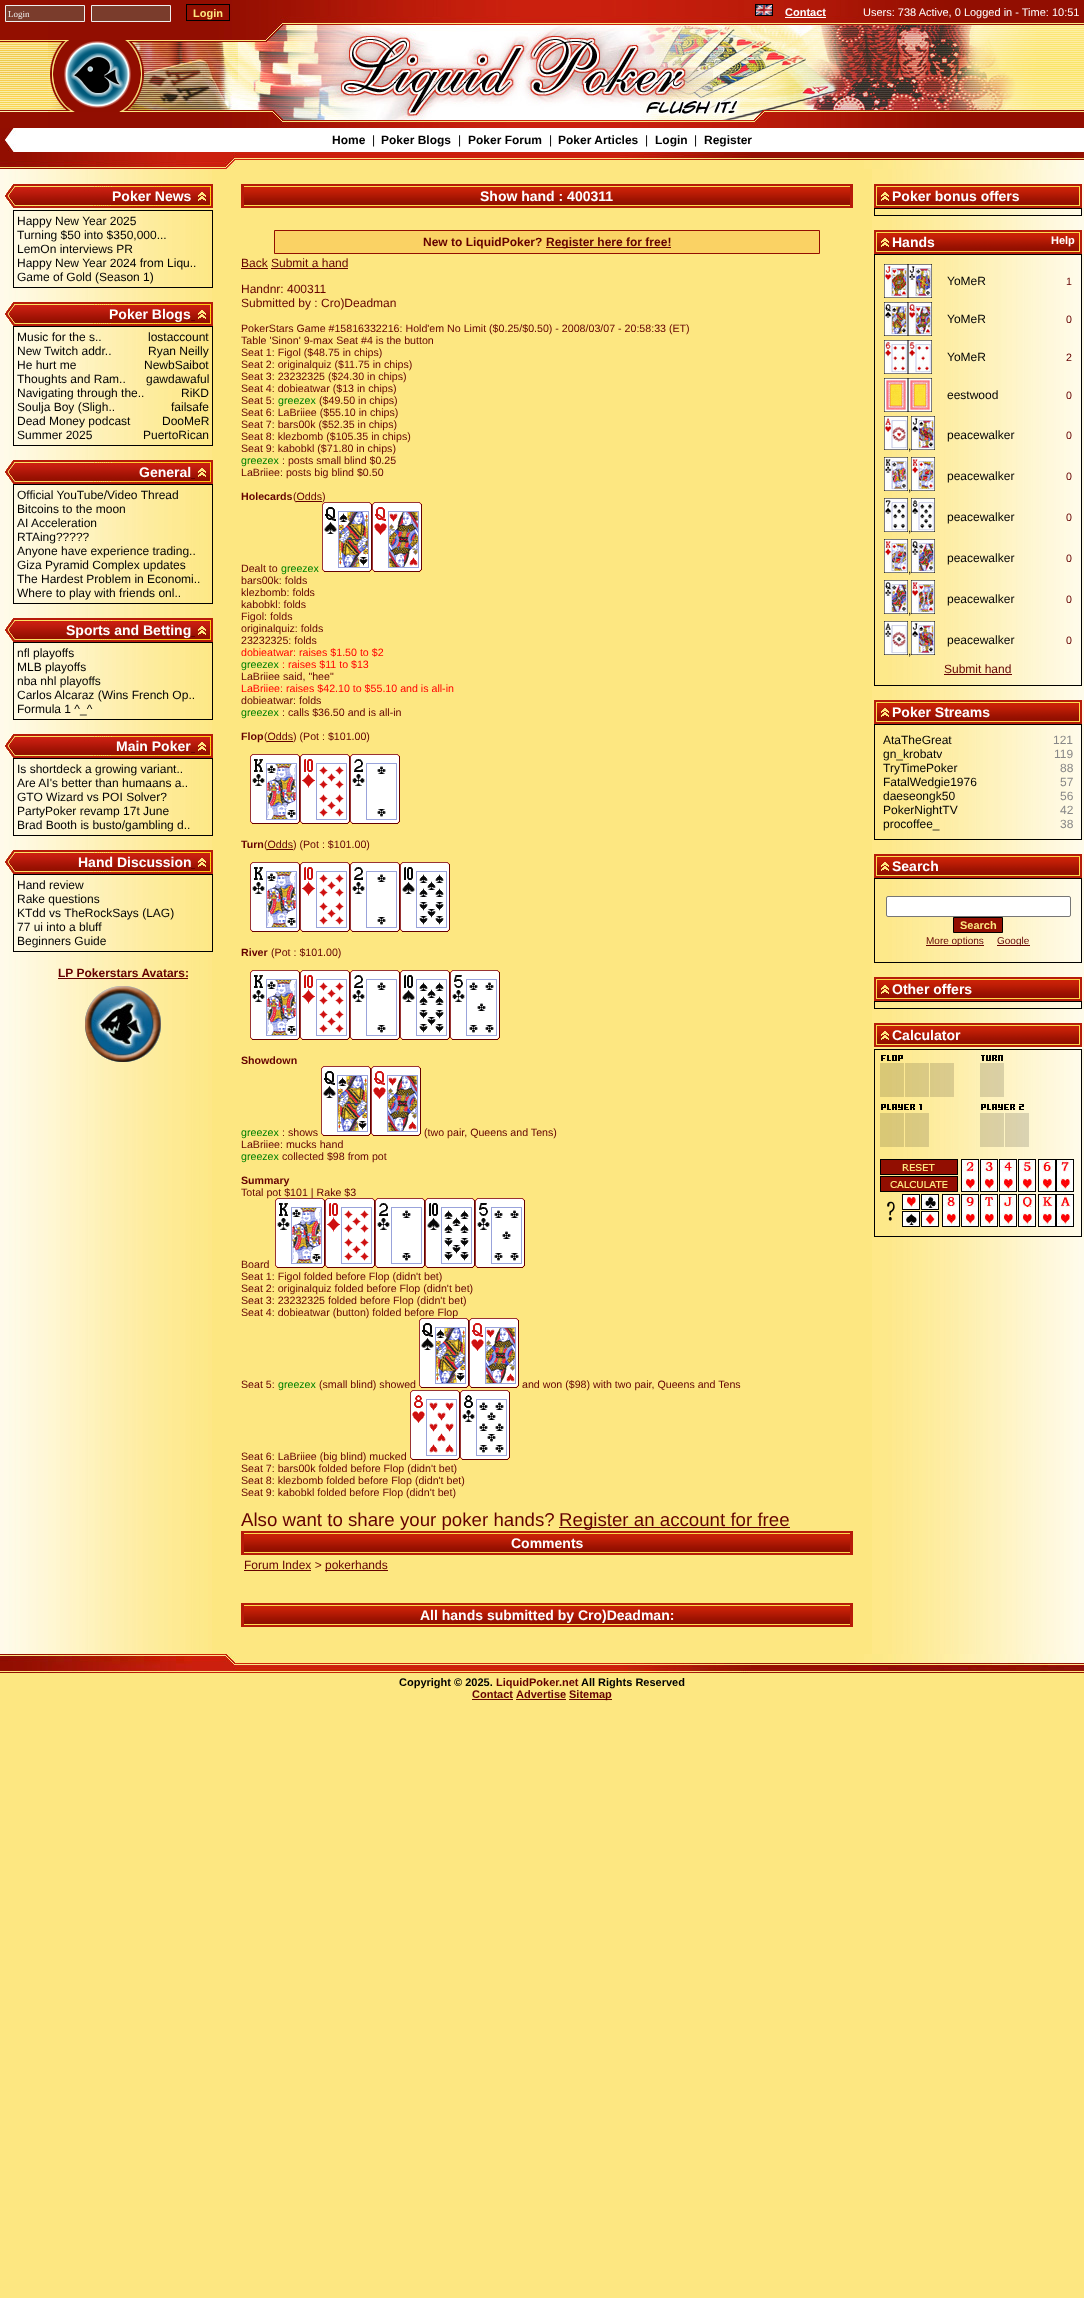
async function draw(canvas) {
	canvas.width = 1084;
	canvas.height = 2298;
	const c = canvas.getContext('2d');
	c.miterLimit = 4;
	c.fontKerning = 'normal';
	async function loadImage(src) {
		const img = new Image();
		img.src = src;
		await img.decode();
		return img;
	}

	c.fillStyle = '#fde781';
	c.fillRect(0, 0, 1084, 2298);
	c.drawImage(await loadImage('img1.png'), 0, 0, 48, 128);
	c.drawImage(await loadImage('img2.png'), 1036, 0, 48, 128);
	c.drawImage(await loadImage('img3.png'), 48, 0, 988, 128);
	c.fillStyle = '#7a3c2c';
	c.beginPath();
	c.rect(5.5, 5.5, 79, 16);
	c.fill();
	c.strokeStyle = '#eee';
	c.stroke();
	c.font = '9px Liberation Serif';
	c.fillStyle = '#eee';
	c.fillText('Login', 8, 17);
	c.fillStyle = '#7a3c2c';
	c.beginPath();
	c.rect(91.5, 5.5, 79, 16);
	c.fill();
	c.stroke();
	c.strokeStyle = '#000';
	c.strokeRect(186.5, 4.5, 43, 16);
	c.font = 'bold 11px Liberation Sans';
	c.fillStyle = '#fde781';
	c.fillText('Login', 193, 17);
	c.drawImage(await loadImage('img4.png'), 755, 4, 18, 12);
	c.fillStyle = '#fff';
	c.fillText('Contact', 785, 16);
	c.fillRect(785, 17, 41, 1);
	c.font = '11px Liberation Sans';
	c.fillText('Users: 738 Active, 0 Logged in - Time: 10:51', 863, 16);
	c.drawImage(await loadImage('img5.png'), 50, 40, 94, 72);
	c.fillRect(16, 128, 1068, 24);
	c.drawImage(await loadImage('img6.png'), 0, 128, 16, 24);
	c.font = 'bold 12px Liberation Sans';
	c.fillStyle = '#000';
	c.fillText('Home', 332, 144);
	c.font = '12px Liberation Sans';
	c.fillText('|', 372, 144);
	c.font = 'bold 12px Liberation Sans';
	c.fillText('Poker Blogs', 381, 144);
	c.font = '12px Liberation Sans';
	c.fillText('|', 458, 144);
	c.font = 'bold 12px Liberation Sans';
	c.fillText('Poker Forum', 468, 144);
	c.font = '12px Liberation Sans';
	c.fillText('|', 549, 144);
	c.font = 'bold 12px Liberation Sans';
	c.fillText('Poker Articles', 558, 144);
	c.font = '12px Liberation Sans';
	c.fillText('|', 645, 144);
	c.font = 'bold 12px Liberation Sans';
	c.fillText('Login', 655, 144);
	c.font = '12px Liberation Sans';
	c.fillText('|', 694, 144);
	c.font = 'bold 12px Liberation Sans';
	c.fillText('Register', 704, 144);
	c.drawImage(await loadImage('img7.png'), 0, 152, 236, 17);
	c.drawImage(await loadImage('img8.png'), 236, 152, 515, 8);
	c.drawImage(await loadImage('img9.png'), 751, 152, 97, 8);
	c.drawImage(await loadImage('img10.png'), 848, 152, 236, 17);
	c.drawImage(await loadImage('img11.png'), 0, 169, 212, 1485);
	c.drawImage(await loadImage('img12.png'), 5, 184, 208, 24);
	c.font = 'bold 14px Liberation Sans';
	c.fillStyle = '#fff';
	c.fillText('Poker News', 112, 201);
	c.drawImage(await loadImage('img13.png'), 198, 192, 8, 9);
	c.strokeRect(13.5, 210.5, 199, 77);
	c.font = '12px Liberation Sans';
	c.fillStyle = '#000';
	for (const [text, x, y] of [
		['Happy New Year 2025', 17, 225],
		['Turning $50 into $350,000...', 17, 239],
		['LemOn interviews PR', 17, 253],
		['Happy New Year 2024 from Liqu..', 17, 267],
		['Game of Gold (Season 1)', 17, 281],
	]) {
		c.fillText(text, x, y);
	}
	c.drawImage(await loadImage('img12.png'), 5, 302, 208, 24);
	c.font = 'bold 14px Liberation Sans';
	c.fillStyle = '#fff';
	c.fillText('Poker Blogs', 109, 319);
	c.drawImage(await loadImage('img13.png'), 198, 310, 8, 9);
	c.fillStyle = '#640000';
	c.fillRect(191, 320, 4, 1);
	c.strokeRect(13.5, 326.5, 199, 119);
	c.font = '12px Liberation Sans';
	c.fillStyle = '#000';
	for (const [text, x, y] of [
		['Music for the s..', 17, 341],
		['lostaccount', 148, 341],
		['New Twitch addr..', 17, 355],
		['Ryan Neilly', 148, 355],
		['He hurt me', 17, 369],
		['NewbSaibot', 144, 369],
		['Thoughts and Ram..', 17, 383],
		['gawdawaful', 146, 383],
		['Navigating through the..', 17, 397],
		['RiKD', 181, 397],
		['Soulja Boy (Sligh..', 17, 411],
		['failsafe', 171, 411],
		['Dead Money podcast', 17, 425],
		['DooMeR', 162, 425],
		['Summer 2025', 17, 439],
		['PuertoRican', 143, 439],
	]) {
		c.fillText(text, x, y);
	}
	c.drawImage(await loadImage('img12.png'), 5, 460, 208, 24);
	c.font = 'bold 14px Liberation Sans';
	c.fillStyle = '#fff';
	c.fillText('General', 139, 477);
	c.drawImage(await loadImage('img13.png'), 198, 468, 8, 9);
	c.fillStyle = '#640000';
	c.fillRect(191, 478, 4, 1);
	c.strokeRect(13.5, 484.5, 199, 119);
	c.font = '12px Liberation Sans';
	c.fillStyle = '#000';
	for (const [text, x, y] of [
		['Official YouTube/Video Thread', 17, 499],
		['Bitcoins to the moon', 17, 513],
		['AI Acceleration', 17, 527],
		['RTAing?????', 17, 541],
		['Anyone have experience trading..', 17, 555],
		['Giza Pyramid Complex updates', 17, 569],
		['The Hardest Problem in Economi..', 17, 583],
		['Where to play with friends onl..', 17, 597],
	]) {
		c.fillText(text, x, y);
	}
	c.drawImage(await loadImage('img12.png'), 5, 618, 208, 24);
	c.font = 'bold 14px Liberation Sans';
	c.fillStyle = '#fff';
	c.fillText('Sports and Betting', 66, 635);
	c.drawImage(await loadImage('img13.png'), 198, 626, 8, 9);
	c.fillStyle = '#640000';
	c.fillRect(191, 636, 4, 1);
	c.strokeRect(13.5, 642.5, 199, 77);
	c.font = '12px Liberation Sans';
	c.fillStyle = '#000';
	for (const [text, x, y] of [
		['nfl playoffs', 17, 657],
		['MLB playoffs', 17, 671],
		['nba nhl playoffs', 17, 685],
		['Carlos Alcaraz (Wins French Op..', 17, 699],
		['Formula 1 ^_^', 17, 713],
	]) {
		c.fillText(text, x, y);
	}
	c.drawImage(await loadImage('img12.png'), 5, 734, 208, 24);
	c.font = 'bold 14px Liberation Sans';
	c.fillStyle = '#fff';
	c.fillText('Main Poker', 116, 751);
	c.drawImage(await loadImage('img13.png'), 198, 742, 8, 9);
	c.fillStyle = '#640000';
	c.fillRect(191, 752, 4, 1);
	c.strokeRect(13.5, 758.5, 199, 77);
	c.font = '12px Liberation Sans';
	c.fillStyle = '#000';
	for (const [text, x, y] of [
		['Is shortdeck a growing variant..', 17, 773],
		['Are AI\'s better than humaans a..', 17, 787],
		['GTO Wizard vs POI Solver?', 17, 801],
		['PartyPoker revamp 17t June', 17, 815],
		['Brad Booth is busto/gambling d..', 17, 829],
	]) {
		c.fillText(text, x, y);
	}
	c.drawImage(await loadImage('img12.png'), 5, 850, 208, 24);
	c.font = 'bold 14px Liberation Sans';
	c.fillStyle = '#fff';
	c.fillText('Hand Discussion', 78, 867);
	c.drawImage(await loadImage('img13.png'), 198, 858, 8, 9);
	c.fillStyle = '#640000';
	c.fillRect(191, 868, 4, 1);
	c.strokeRect(13.5, 874.5, 199, 77);
	c.font = '12px Liberation Sans';
	c.fillStyle = '#000';
	for (const [text, x, y] of [
		['Hand review', 17, 889],
		['Rake questions', 17, 903],
		['KTdd vs TheRockSays (LAG)', 17, 917],
		['77 ui into a bluff', 17, 931],
		['Beginners Guide', 17, 945],
	]) {
		c.fillText(text, x, y);
	}
	c.font = 'bold 12px Liberation Sans';
	c.fillStyle = '#640000';
	c.fillText('LP Pokerstars Avatars:', 58, 977);
	c.fillRect(58, 978, 130, 1);
	c.drawImage(await loadImage('img14.png'), 85, 986, 76, 76);
	c.fillStyle = '#b71a09';
	c.fillRect(241, 184, 3, 24);
	c.drawImage(await loadImage('img15.png'), 244, 184, 606, 24);
	c.font = 'bold 14px Liberation Sans';
	c.fillStyle = '#fff';
	c.fillText('Show hand : 400311', 480, 201);
	c.fillStyle = '#b71a09';
	c.fillRect(850, 184, 3, 24);
	c.fillStyle = '#fad264';
	c.beginPath();
	c.rect(274.5, 230.5, 545, 23);
	c.fill();
	c.strokeStyle = '#920e01';
	c.stroke();
	c.font = 'bold 12px Liberation Sans';
	c.fillStyle = '#640000';
	c.fillText('New to LiquidPoker?', 423, 246);
	c.fillRect(546, 247, 125, 1);
	c.fillText('Register here for free!', 546, 246);
	c.font = '12px Liberation Sans';
	c.fillText('Back Submit a hand', 241, 267);
	c.fillRect(241, 268, 27, 1);
	c.fillRect(271, 268, 77, 1);
	c.fillText('Handnr: 400311', 241, 293);
	c.fillText('Submitted by : Cro)Deadman', 241, 307);
	c.font = '10.65px Liberation Sans';
	for (const [text, x, y] of [
		['PokerStars Game #15816332216: Hold\'em No Limit ($0.25/$0.50) - 2008/03/07 - 20:58:33 (ET)', 241, 332],
		['Table \'Sinon\' 9-max Seat #4 is the button', 241, 344],
		['Seat 1: Figol ($48.75 in chips)', 241, 356],
		['Seat 2: originalquiz ($11.75 in chips)', 241, 368],
		['Seat 3: 23232325 ($24.30 in chips)', 241, 380],
		['Seat 4: dobieatwar ($13 in chips)', 241, 392],
		['Seat 5:', 241, 404],
	]) {
		c.fillText(text, x, y);
	}
	c.fillStyle = '#008000';
	c.fillText('greezex', 278, 404);
	c.fillStyle = '#640000';
	for (const [text, x, y] of [
		['($49.50 in chips)', 319, 404],
		['Seat 6: LaBriiee ($55.10 in chips)', 241, 416],
		['Seat 7: bars00k ($52.35 in chips)', 241, 428],
		['Seat 8: klezbomb ($105.35 in chips)', 241, 440],
		['Seat 9: kabobkl ($71.80 in chips)', 241, 452],
	]) {
		c.fillText(text, x, y);
	}
	c.fillStyle = '#008000';
	c.fillText('greezex', 241, 464);
	c.fillStyle = '#640000';
	c.fillText(': posts small blind $0.25', 282, 464);
	c.fillText('LaBriiee: posts big blind $0.50', 241, 476);
	c.font = 'bold 10.65px Liberation Sans';
	c.fillText('Holecards', 241, 500);
	c.font = '10.65px Liberation Sans';
	c.fillText('(Odds', 293, 500);
	c.fillRect(296, 501, 26, 1);
	c.fillText(')', 322, 500);
	c.fillText('Dealt to', 241, 572);
	c.fillStyle = '#008000';
	c.fillText('greezex', 281, 572);
	c.drawImage(await loadImage('img16.png'), 322, 502, 50, 70);
	c.drawImage(await loadImage('img17.png'), 372, 502, 50, 70);
	c.fillStyle = '#640000';
	for (const [text, x, y] of [
		['bars00k: folds', 241, 584],
		['klezbomb: folds', 241, 596],
		['kabobkl: folds', 241, 608],
		['Figol: folds', 241, 620],
		['originalquiz: folds', 241, 632],
		['23232325: folds', 241, 644],
	]) {
		c.fillText(text, x, y);
	}
	c.fillStyle = '#f00';
	c.fillText('dobieatwar: raises $1.50 to $2', 241, 656);
	c.fillStyle = '#008000';
	c.fillText('greezex', 241, 668);
	c.fillStyle = '#f00';
	c.fillText(': raises $11 to $13', 282, 668);
	c.fillStyle = '#640000';
	c.fillText('LaBriiee said, "hee"', 241, 680);
	c.fillStyle = '#f00';
	c.fillText('LaBriiee: raises $42.10 to $55.10 and is all-in', 241, 692);
	c.fillStyle = '#640000';
	c.fillText('dobieatwar: folds', 241, 704);
	c.fillStyle = '#008000';
	c.fillText('greezex', 241, 716);
	c.fillStyle = '#640000';
	c.fillText(': calls $36.50 and is all-in', 282, 716);
	c.font = 'bold 10.65px Liberation Sans';
	c.fillText('Flop', 241, 740);
	c.font = '10.65px Liberation Sans';
	c.fillText('(Odds', 264, 740);
	c.fillRect(267, 741, 26, 1);
	c.fillText(') (Pot : $101.00)', 293, 740);
	c.drawImage(await loadImage('img18.png'), 250, 754, 50, 70);
	c.drawImage(await loadImage('img19.png'), 300, 754, 50, 70);
	c.drawImage(await loadImage('img20.png'), 350, 754, 50, 70);
	c.font = 'bold 10.65px Liberation Sans';
	c.fillText('Turn', 241, 848);
	c.font = '10.65px Liberation Sans';
	c.fillText('(Odds) (Pot : $101.00)', 264, 848);
	c.fillRect(267, 849, 26, 1);
	c.drawImage(await loadImage('img18.png'), 250, 862, 50, 70);
	c.drawImage(await loadImage('img19.png'), 300, 862, 50, 70);
	c.drawImage(await loadImage('img20.png'), 350, 862, 50, 70);
	c.drawImage(await loadImage('img21.png'), 400, 862, 50, 70);
	c.font = 'bold 10.65px Liberation Sans';
	c.fillText('River', 241, 956);
	c.font = '10.65px Liberation Sans';
	c.fillText('(Pot : $101.00)', 271, 956);
	c.drawImage(await loadImage('img18.png'), 250, 970, 50, 70);
	c.drawImage(await loadImage('img19.png'), 300, 970, 50, 70);
	c.drawImage(await loadImage('img20.png'), 350, 970, 50, 70);
	c.drawImage(await loadImage('img21.png'), 400, 970, 50, 70);
	c.drawImage(await loadImage('img22.png'), 450, 970, 50, 70);
	c.font = 'bold 10.65px Liberation Sans';
	c.fillText('Showdown', 241, 1064);
	c.font = '10.65px Liberation Sans';
	c.fillStyle = '#008000';
	c.fillText('greezex', 241, 1136);
	c.fillStyle = '#640000';
	c.fillText(': shows', 282, 1136);
	c.drawImage(await loadImage('img23.png'), 321, 1066, 50, 70);
	c.drawImage(await loadImage('img17.png'), 371, 1066, 50, 70);
	c.fillText('(two pair, Queens and Tens)', 424, 1136);
	c.fillText('LaBriiee: mucks hand', 241, 1148);
	c.fillStyle = '#008000';
	c.fillText('greezex', 241, 1160);
	c.fillStyle = '#640000';
	c.fillText('collected $98 from pot', 282, 1160);
	c.font = 'bold 10.65px Liberation Sans';
	c.fillText('Summary', 241, 1184);
	c.font = '10.65px Liberation Sans';
	c.fillText('Total pot $101 | Rake $3', 241, 1196);
	c.fillText('Board', 241, 1268);
	c.drawImage(await loadImage('img18.png'), 275, 1198, 50, 70);
	c.drawImage(await loadImage('img19.png'), 325, 1198, 50, 70);
	c.drawImage(await loadImage('img20.png'), 375, 1198, 50, 70);
	c.drawImage(await loadImage('img21.png'), 425, 1198, 50, 70);
	c.drawImage(await loadImage('img22.png'), 475, 1198, 50, 70);
	for (const [text, x, y] of [
		['Seat 1: Figol folded before Flop (didn\'t bet)', 241, 1280],
		['Seat 2: originalquiz folded before Flop (didn\'t bet)', 241, 1292],
		['Seat 3: 23232325 folded before Flop (didn\'t bet)', 241, 1304],
		['Seat 4: dobieatwar (button) folded before Flop', 241, 1316],
		['Seat 5:', 241, 1388],
	]) {
		c.fillText(text, x, y);
	}
	c.fillStyle = '#008000';
	c.fillText('greezex', 278, 1388);
	c.fillStyle = '#640000';
	c.fillText('(small blind) showed', 319, 1388);
	c.drawImage(await loadImage('img23.png'), 419, 1318, 50, 70);
	c.drawImage(await loadImage('img17.png'), 469, 1318, 50, 70);
	c.fillText('and won ($98) with two pair, Queens and Tens', 522, 1388);
	c.fillText('Seat 6: LaBriiee (big blind) mucked', 241, 1460);
	c.drawImage(await loadImage('img24.png'), 410, 1390, 50, 70);
	c.drawImage(await loadImage('img25.png'), 460, 1390, 50, 70);
	for (const [text, x, y] of [
		['Seat 7: bars00k folded before Flop (didn\'t bet)', 241, 1472],
		['Seat 8: klezbomb folded before Flop (didn\'t bet)', 241, 1484],
		['Seat 9: kabobkl folded before Flop (didn\'t bet)', 241, 1496],
	]) {
		c.fillText(text, x, y);
	}
	c.font = '18.7px Liberation Sans';
	c.fillText('Also want to share your poker hands?', 241, 1526);
	c.fillRect(559, 1527, 231, 1);
	c.fillText('Register an account for free', 559, 1526);
	c.fillStyle = '#b71a09';
	c.fillRect(241, 1531, 3, 24);
	c.drawImage(await loadImage('img15.png'), 244, 1531, 606, 24);
	c.font = 'bold 14px Liberation Sans';
	c.fillStyle = '#fff';
	c.fillText('Comments', 511, 1548);
	c.fillStyle = '#b71a09';
	c.fillRect(850, 1531, 3, 24);
	c.font = '12px Liberation Sans';
	c.fillStyle = '#640000';
	c.fillText('Forum Index >', 244, 1569);
	c.fillRect(244, 1570, 67, 1);
	c.fillRect(325, 1570, 63, 1);
	c.fillText('pokerhands', 325, 1569);
	c.fillStyle = '#b71a09';
	c.fillRect(241, 1603, 3, 24);
	c.drawImage(await loadImage('img15.png'), 244, 1603, 606, 24);
	c.font = 'bold 14px Liberation Sans';
	c.fillStyle = '#fff';
	c.fillText('All hands submitted by Cro)Deadman:', 420, 1620);
	c.fillStyle = '#b71a09';
	c.fillRect(850, 1603, 3, 24);
	c.drawImage(await loadImage('img26.png'), 872, 169, 212, 1485);
	c.drawImage(await loadImage('img27.png'), 874, 184, 208, 24);
	c.drawImage(await loadImage('img28.png'), 881, 192, 8, 9);
	c.fillStyle = '#fff';
	c.fillText('Poker bonus offers', 892, 201);
	c.strokeStyle = '#000';
	c.strokeRect(874.5, 208.5, 207, 7);
	c.drawImage(await loadImage('img27.png'), 874, 230, 208, 24);
	c.drawImage(await loadImage('img28.png'), 881, 238, 8, 9);
	c.fillText('Hands', 892, 247);
	c.font = 'bold 11px Liberation Sans';
	c.fillText('Help', 1051, 244);
	c.strokeRect(874.5, 254.5, 207, 431);
	c.drawImage(await loadImage('img29.png'), 884, 264, 24, 34);
	c.drawImage(await loadImage('img30.png'), 908, 264, 24, 34);
	c.font = '12px Liberation Sans';
	c.fillStyle = '#000';
	c.fillText('YoMeR', 947, 285);
	c.font = '10.65px Liberation Sans';
	c.fillStyle = '#640000';
	c.fillText('1', 1066, 285);
	c.drawImage(await loadImage('img31.png'), 884, 302, 24, 34);
	c.drawImage(await loadImage('img32.png'), 908, 302, 24, 34);
	c.font = '12px Liberation Sans';
	c.fillStyle = '#000';
	c.fillText('YoMeR', 947, 323);
	c.font = '10.65px Liberation Sans';
	c.fillStyle = '#640000';
	c.fillText('0', 1066, 323);
	c.drawImage(await loadImage('img33.png'), 884, 340, 24, 34);
	c.drawImage(await loadImage('img34.png'), 908, 340, 24, 34);
	c.font = '12px Liberation Sans';
	c.fillStyle = '#000';
	c.fillText('YoMeR', 947, 361);
	c.font = '10.65px Liberation Sans';
	c.fillStyle = '#640000';
	c.fillText('2', 1066, 361);
	c.drawImage(await loadImage('img35.png'), 884, 378, 24, 34);
	c.drawImage(await loadImage('img35.png'), 908, 378, 24, 34);
	c.font = '12px Liberation Sans';
	c.fillStyle = '#000';
	c.fillText('eestwood', 947, 399);
	c.font = '10.65px Liberation Sans';
	c.fillStyle = '#640000';
	c.fillText('0', 1066, 399);
	c.font = '12px Liberation Sans';
	c.fillStyle = '#000';
	c.fillText('peacewalker', 947, 439);
	c.font = '10.65px Liberation Sans';
	c.fillStyle = '#640000';
	c.fillText('0', 1066, 439);
	c.drawImage(await loadImage('img36.png'), 884, 416, 24, 34);
	c.font = '12px Liberation Sans';
	c.fillStyle = '#000';
	c.fillText(',', 908, 450);
	c.drawImage(await loadImage('img37.png'), 911, 416, 24, 34);
	c.fillText('peacewalker', 947, 480);
	c.font = '10.65px Liberation Sans';
	c.fillStyle = '#640000';
	c.fillText('0', 1066, 480);
	c.drawImage(await loadImage('img38.png'), 884, 457, 24, 34);
	c.font = '12px Liberation Sans';
	c.fillStyle = '#000';
	c.fillText(',', 908, 491);
	c.drawImage(await loadImage('img39.png'), 911, 457, 24, 34);
	c.fillText('peacewalker', 947, 521);
	c.font = '10.65px Liberation Sans';
	c.fillStyle = '#640000';
	c.fillText('0', 1066, 521);
	c.drawImage(await loadImage('img40.png'), 884, 498, 24, 34);
	c.font = '12px Liberation Sans';
	c.fillStyle = '#000';
	c.fillText(',', 908, 532);
	c.drawImage(await loadImage('img41.png'), 911, 498, 24, 34);
	c.fillText('peacewalker', 947, 562);
	c.font = '10.65px Liberation Sans';
	c.fillStyle = '#640000';
	c.fillText('0', 1066, 562);
	c.drawImage(await loadImage('img39.png'), 884, 539, 24, 34);
	c.font = '12px Liberation Sans';
	c.fillStyle = '#000';
	c.fillText(',', 908, 573);
	c.drawImage(await loadImage('img42.png'), 911, 539, 24, 34);
	c.fillText('peacewalker', 947, 603);
	c.font = '10.65px Liberation Sans';
	c.fillStyle = '#640000';
	c.fillText('0', 1066, 603);
	c.drawImage(await loadImage('img42.png'), 884, 580, 24, 34);
	c.font = '12px Liberation Sans';
	c.fillStyle = '#000';
	c.fillText(',', 908, 614);
	c.drawImage(await loadImage('img43.png'), 911, 580, 24, 34);
	c.fillText('peacewalker', 947, 644);
	c.font = '10.65px Liberation Sans';
	c.fillStyle = '#640000';
	c.fillText('0', 1066, 644);
	c.drawImage(await loadImage('img44.png'), 884, 621, 24, 34);
	c.font = '12px Liberation Sans';
	c.fillStyle = '#000';
	c.fillText(',', 908, 655);
	c.drawImage(await loadImage('img37.png'), 911, 621, 24, 34);
	c.fillStyle = '#640000';
	c.fillText('Submit hand', 944, 673);
	c.fillRect(944, 674, 68, 1);
	c.drawImage(await loadImage('img27.png'), 874, 700, 208, 24);
	c.drawImage(await loadImage('img28.png'), 881, 708, 8, 9);
	c.font = 'bold 14px Liberation Sans';
	c.fillStyle = '#fff';
	c.fillText('Poker Streams', 892, 717);
	c.strokeRect(874.5, 724.5, 207, 115);
	c.font = '12px Liberation Sans';
	c.fillStyle = '#000';
	c.fillText('AtaTheGreat', 883, 744);
	c.fillStyle = '#888';
	c.fillText('121', 1053, 744);
	c.fillStyle = '#000';
	c.fillText('gn_krobatv', 883, 758);
	c.fillStyle = '#888';
	c.fillText('119', 1054, 758);
	c.fillStyle = '#000';
	c.fillText('TryTimePoker', 883, 772);
	c.fillStyle = '#888';
	c.fillText('88', 1060, 772);
	c.fillStyle = '#000';
	c.fillText('FatalWedgie1976', 883, 786);
	c.fillStyle = '#888';
	c.fillText('57', 1060, 786);
	c.fillStyle = '#000';
	c.fillText('daeseongk50', 883, 800);
	c.fillStyle = '#888';
	c.fillText('56', 1060, 800);
	c.fillStyle = '#000';
	c.fillText('PokerNightTV', 883, 814);
	c.fillStyle = '#888';
	c.fillText('42', 1060, 814);
	c.fillStyle = '#000';
	c.fillText('procoffee_', 883, 828);
	c.fillStyle = '#888';
	c.fillText('38', 1060, 828);
	c.drawImage(await loadImage('img27.png'), 874, 854, 208, 24);
	c.drawImage(await loadImage('img28.png'), 881, 862, 8, 9);
	c.font = 'bold 14px Liberation Sans';
	c.fillStyle = '#fff';
	c.fillText('Search', 892, 871);
	c.strokeRect(874.5, 878.5, 207, 84);
	c.beginPath();
	c.roundRect(886.5, 896.5, 184, 20, 1.5);
	c.fill();
	c.strokeStyle = '#767676';
	c.stroke();
	c.fillStyle = '#920e01';
	c.beginPath();
	c.rect(953.5, 917.5, 49, 15);
	c.fill();
	c.strokeStyle = '#000';
	c.stroke();
	c.font = 'bold 11px Liberation Sans';
	c.fillStyle = '#fde781';
	c.fillText('Search', 960, 929);
	c.fillStyle = '#640000';
	c.fillRect(926, 945, 58, 1);
	c.font = '10px Liberation Sans';
	c.fillText('More options', 926, 944);
	c.fillRect(997, 945, 33, 1);
	c.fillText('Google', 997, 944);
	c.drawImage(await loadImage('img27.png'), 874, 977, 208, 24);
	c.drawImage(await loadImage('img28.png'), 881, 985, 8, 9);
	c.font = 'bold 14px Liberation Sans';
	c.fillStyle = '#fff';
	c.fillText('Other offers', 892, 994);
	c.strokeRect(874.5, 1001.5, 207, 7);
	c.drawImage(await loadImage('img27.png'), 874, 1023, 208, 24);
	c.drawImage(await loadImage('img28.png'), 881, 1031, 8, 9);
	c.fillText('Calculator', 892, 1040);
	c.strokeRect(874.5, 1049.5, 207, 187);
	c.drawImage(await loadImage('img45.png'), 881, 1055, 22, 6);
	c.drawImage(await loadImage('img46.png'), 981, 1054, 22, 8);
	for (const [x, y, w, h, color] of [
		[880, 1063, 24, 34, '#00000024'],
		[905, 1063, 24, 34, '#00000024'],
		[930, 1063, 24, 34, '#00000024'],
		[980, 1063, 24, 34, '#00000024'],
	]) {
		c.fillStyle = color;
		c.fillRect(x, y, w, h);
	}
	c.drawImage(await loadImage('img47.png'), 881, 1104, 41, 6);
	c.drawImage(await loadImage('img48.png'), 981, 1103, 43, 8);
	for (const [x, y, w, h, color] of [
		[880, 1113, 24, 34, '#00000024'],
		[905, 1113, 24, 34, '#00000024'],
		[980, 1113, 24, 34, '#00000024'],
		[1005, 1113, 24, 34, '#00000024'],
	]) {
		c.fillStyle = color;
		c.fillRect(x, y, w, h);
	}
	c.drawImage(await loadImage('img49.png'), 880, 1159, 78, 16);
	c.drawImage(await loadImage('img50.png'), 961, 1159, 18, 33);
	c.drawImage(await loadImage('img51.png'), 980, 1159, 18, 33);
	c.drawImage(await loadImage('img52.png'), 999, 1159, 18, 33);
	c.drawImage(await loadImage('img53.png'), 1018, 1159, 18, 33);
	c.drawImage(await loadImage('img54.png'), 1038, 1159, 18, 33);
	c.drawImage(await loadImage('img55.png'), 1056, 1159, 18, 33);
	c.drawImage(await loadImage('img56.png'), 880, 1176, 78, 16);
	c.drawImage(await loadImage('img57.png'), 887, 1201, 8, 20);
	c.drawImage(await loadImage('img58.png'), 902, 1194, 18, 16);
	c.drawImage(await loadImage('img59.png'), 921, 1194, 18, 16);
	c.drawImage(await loadImage('img60.png'), 942, 1194, 18, 33);
	c.drawImage(await loadImage('img61.png'), 961, 1194, 18, 33);
	c.drawImage(await loadImage('img62.png'), 980, 1194, 18, 33);
	c.drawImage(await loadImage('img63.png'), 999, 1194, 18, 33);
	c.drawImage(await loadImage('img64.png'), 1018, 1194, 18, 33);
	c.drawImage(await loadImage('img65.png'), 1038, 1194, 18, 33);
	c.drawImage(await loadImage('img66.png'), 1056, 1194, 18, 33);
	c.drawImage(await loadImage('img67.png'), 902, 1211, 18, 16);
	c.drawImage(await loadImage('img68.png'), 921, 1211, 18, 16);
	c.drawImage(await loadImage('img69.png'), 0, 1654, 236, 19);
	c.drawImage(await loadImage('img70.png'), 236, 1662, 515, 11);
	c.drawImage(await loadImage('img71.png'), 751, 1662, 97, 11);
	c.drawImage(await loadImage('img72.png'), 848, 1654, 236, 19);
	c.font = 'bold 11px Liberation Sans';
	c.fillStyle = '#000';
	c.fillText('Copyright © 2025.', 399, 1686);
	c.fillStyle = '#640000';
	c.fillText('LiquidPoker.net', 496, 1686);
	c.fillStyle = '#000';
	c.fillText('All Rights Reserved', 581, 1686);
	c.fillStyle = '#640000';
	c.fillText('Contact', 472, 1698);
	c.fillRect(472, 1699, 41, 1);
	c.fillText('Advertise', 516, 1698);
	c.fillRect(516, 1699, 50, 1);
	c.fillRect(569, 1699, 43, 1);
	c.fillText('Sitemap', 569, 1698);
}

draw(document.querySelector('canvas'));
